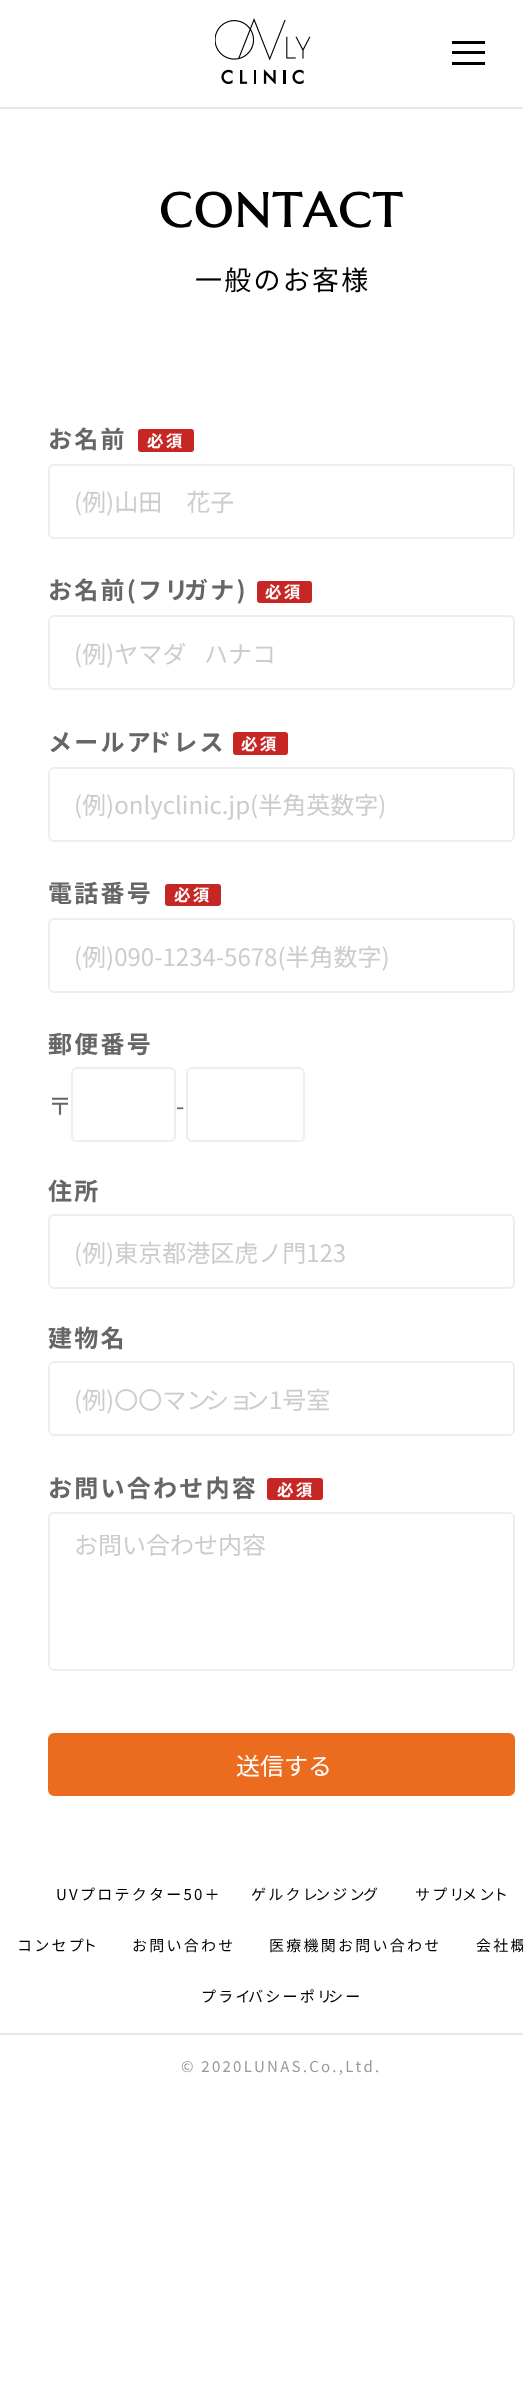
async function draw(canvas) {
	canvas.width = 523;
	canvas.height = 2401;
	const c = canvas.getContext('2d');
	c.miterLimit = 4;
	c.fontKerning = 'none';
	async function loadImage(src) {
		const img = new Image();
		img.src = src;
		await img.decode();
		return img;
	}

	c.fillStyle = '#fff';
	c.fillRect(0, 0, 523, 2401);
	c.fillStyle = '#e6e6e6';
	c.fillRect(0, 107, 523, 2);
	c.drawImage(await loadImage('img1.png'), 215, 18, 96, 66);
	for (const [x, y, w, h, color] of [
		[452, 41, 33, 3, '#000'],
		[452, 51, 33, 3, '#000'],
		[452, 62, 33, 3, '#000'],
	]) {
		c.fillStyle = color;
		c.fillRect(x, y, w, h);
	}
	c.letterSpacing = '2.25px';
	c.font = 'bold 48px Marcellus';
	c.fillText('CONTACT', 159, 227);
	c.font = '27px Noto Sans JP';
	c.fillText('一般のお客様', 195, 290);
	c.font = 'bold 24px Noto Sans JP';
	c.fillStyle = '#666';
	c.fillText('お名前', 48, 448);
	c.fillStyle = '#c72724';
	c.beginPath();
	c.roundRect(138, 429, 56, 23, 3);
	c.fill();
	c.font = 'bold 16.5px Noto Sans JP';
	c.fillStyle = '#fff';
	c.fillText('必須', 147, 447);
	c.beginPath();
	c.roundRect(49, 465, 465, 73, 5);
	c.strokeStyle = '#eee';
	c.lineWidth = 2;
	c.stroke();
	c.letterSpacing = '0px';
	c.font = '24px Noto Sans JP';
	c.fillStyle = '#ccc';
	c.fillText('(例)山田　花子', 74, 511);
	c.letterSpacing = '2.25px';
	c.font = 'bold 24px Noto Sans JP';
	c.fillStyle = '#666';
	c.fillText('お名前(フリ', 48, 599);
	c.fillText('ガナ)', 184, 599);
	c.fillStyle = '#c72724';
	c.beginPath();
	c.roundRect(257, 581, 55, 22, 3);
	c.fill();
	c.font = 'bold 16.5px Noto Sans JP';
	c.fillStyle = '#fff';
	c.fillText('必須', 265, 598);
	c.beginPath();
	c.roundRect(49, 616, 465, 73, 5);
	c.stroke();
	c.letterSpacing = '0px';
	c.font = '24px Noto Sans JP';
	c.fillStyle = '#ccc';
	c.fillText('(例)ヤマダ', 74, 663);
	c.fillText('　ハナコ', 180, 663);
	c.letterSpacing = '2.25px';
	c.font = 'bold 24px Noto Sans JP';
	c.fillStyle = '#666';
	c.fillText('メールア', 48, 751);
	c.fillText('ドレス', 147, 751);
	c.fillStyle = '#c72724';
	c.beginPath();
	c.roundRect(233, 732, 55, 23, 3);
	c.fill();
	c.font = 'bold 16.5px Noto Sans JP';
	c.fillStyle = '#fff';
	c.fillText('必須', 241, 750);
	c.beginPath();
	c.roundRect(49, 768, 465, 73, 5);
	c.stroke();
	c.letterSpacing = '0px';
	c.font = '24px Noto Sans JP';
	c.fillStyle = '#ccc';
	c.fillText('(例)onlyclinic.jp(半角英数字)', 74, 814);
	c.letterSpacing = '2.25px';
	c.font = 'bold 24px Noto Sans JP';
	c.fillStyle = '#666';
	c.fillText('電話番号', 48, 902);
	c.fillStyle = '#c72724';
	c.beginPath();
	c.roundRect(165, 884, 56, 22, 3);
	c.fill();
	c.font = 'bold 16.5px Noto Sans JP';
	c.fillStyle = '#fff';
	c.fillText('必須', 174, 901);
	c.beginPath();
	c.roundRect(49, 919, 465, 73, 5);
	c.stroke();
	c.letterSpacing = '0px';
	c.font = '24px Noto Sans JP';
	c.fillStyle = '#ccc';
	c.fillText('(例)090-1234-5678(半角数字)', 74, 966);
	c.letterSpacing = '2.25px';
	c.font = 'bold 24px Noto Sans JP';
	c.fillStyle = '#666';
	c.fillText('郵便番号', 48, 1053);
	c.font = '24px Noto Sans JP';
	c.fillText('〒', 48, 1115);
	c.beginPath();
	c.roundRect(72, 1068, 103, 73, 5);
	c.stroke();
	c.fillText('-', 176, 1115);
	c.beginPath();
	c.roundRect(187, 1068, 117, 73, 5);
	c.stroke();
	c.font = 'bold 24px Noto Sans JP';
	c.fillText('住所', 48, 1200);
	c.beginPath();
	c.roundRect(49, 1215, 465, 73, 5);
	c.stroke();
	c.letterSpacing = '0px';
	c.font = '24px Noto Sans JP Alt';
	c.fillStyle = '#ccc';
	c.fillText('(例)東京都港区虎ノ門123', 74, 1262);
	c.letterSpacing = '2.25px';
	c.font = 'bold 24px Noto Sans JP';
	c.fillStyle = '#666';
	c.fillText('建物名', 48, 1347);
	c.beginPath();
	c.roundRect(49, 1362, 465, 73, 5);
	c.stroke();
	c.letterSpacing = '0px';
	c.font = '24px Noto Sans JP';
	c.fillStyle = '#ccc';
	c.fillText('(例)〇〇マン', 74, 1409);
	c.fillText('ショ', 205, 1409);
	c.fillText('ン1号室', 245, 1409);
	c.letterSpacing = '2.25px';
	c.font = 'bold 24px Noto Sans JP';
	c.fillStyle = '#666';
	c.fillText('お問い合わせ内容', 48, 1497);
	c.fillStyle = '#c72724';
	c.beginPath();
	c.roundRect(267, 1478, 56, 22, 3);
	c.fill();
	c.font = 'bold 16.5px Noto Sans JP';
	c.fillStyle = '#fff';
	c.fillText('必須', 277, 1496);
	c.beginPath();
	c.roundRect(49, 1513, 465, 157, 5);
	c.stroke();
	c.letterSpacing = '0px';
	c.font = '24px Noto Sans JP';
	c.fillStyle = '#ccc';
	c.fillText('お問い合わせ内容', 74, 1554);
	c.fillStyle = '#ec6c1f';
	c.beginPath();
	c.roundRect(49, 1734, 465, 61, 5);
	c.fill();
	c.strokeStyle = '#ec6c1f';
	c.stroke();
	c.fillStyle = '#fff';
	c.fillText('送信する', 236, 1775);
	c.fillStyle = '#e6e6e6';
	c.fillRect(0, 2033, 523, 2);
	c.letterSpacing = '2.25px';
	c.font = '15px Noto Sans JP Alt';
	c.fillStyle = '#000';
	c.fillText('UVプロテクター50＋', 56, 1900);
	c.font = '15px Noto Sans JP';
	for (const [text, x, y] of [
		['ゲルクレ', 251, 1900],
		['ンジン', 315, 1900],
		['グ', 363, 1900],
		['サプリ', 415, 1900],
		['メン', 462, 1900],
		['ト', 493, 1900],
		['コンセプ', 17, 1951],
		['ト', 82, 1951],
		['お問い合わせ', 132, 1951],
		['医療機関お問い合わせ', 269, 1951],
		['会社概', 476, 1951],
		['プライ', 201, 2002],
		['バシーポリ', 248, 2002],
		['シー', 328, 2002],
	]) {
		c.fillText(text, x, y);
	}
	c.fillStyle = '#999';
	c.fillText('© 2020LUNAS.Co.,Ltd.', 181, 2072);
}

draw(document.querySelector('canvas'));
